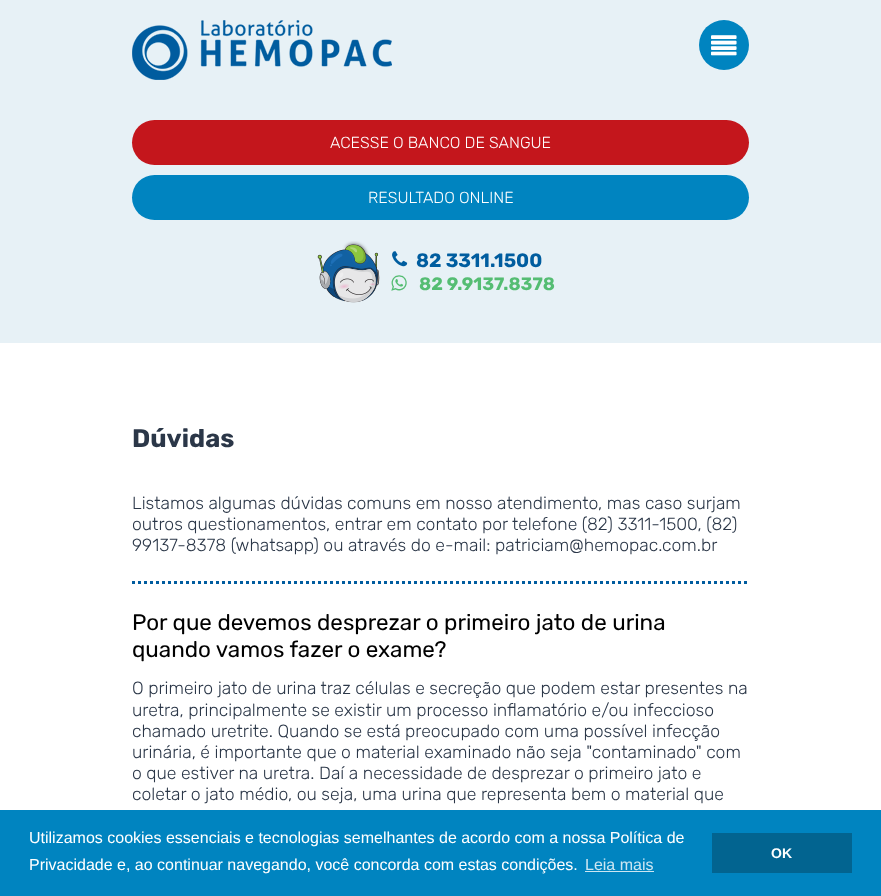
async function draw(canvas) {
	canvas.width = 881;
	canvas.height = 896;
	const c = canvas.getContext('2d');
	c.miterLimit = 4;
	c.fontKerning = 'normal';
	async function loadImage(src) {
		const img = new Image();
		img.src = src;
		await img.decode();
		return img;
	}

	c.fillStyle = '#fff';
	c.fillRect(0, 0, 881, 896);
	c.fillStyle = '#e7f1f6';
	c.fillRect(0, 0, 881, 343);
	c.fillStyle = '#0084c0';
	c.beginPath();
	c.arc(724, 45, 25, 0, 2 * Math.PI);
	c.fill();
	c.font = '25.5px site';
	c.fillStyle = '#fff';
	c.fillText('9', 711, 59);
	c.drawImage(await loadImage('img1.png'), 132, 20, 260, 60);
	c.fillStyle = '#c4161c';
	c.beginPath();
	c.roundRect(132, 120, 617, 45, 22.5);
	c.fill();
	c.font = '300 16px Rubik';
	c.fillStyle = '#fff';
	c.fillText('ACESSE O BANCO DE SANGUE', 330, 148);
	c.fillStyle = '#0084c0';
	c.beginPath();
	c.roundRect(132, 175, 617, 45, 22.5);
	c.fill();
	c.fillStyle = '#fff';
	c.fillText('RESULTADO ONLINE', 368, 203);
	c.drawImage(await loadImage('img2.png'), 317, 241, 63, 62);
	c.drawImage(await loadImage('img3.png'), 392, 251, 16, 16);
	c.font = 'bold 19.25px Rubik';
	c.fillStyle = '#005d9f';
	c.fillText('82 3311.1500', 416, 267);
	c.font = '18px site';
	c.fillStyle = '#55bd73';
	c.fillText('.', 390, 292);
	c.font = 'bold 18px Rubik';
	c.fillText('82 9.9137.8378', 419, 290);
	c.font = 'bold 25.5px Rubik';
	c.fillStyle = '#2b3748';
	c.fillText('Dúvidas', 132, 447);
	c.font = '300 17.6px Rubik';
	for (const [text, x, y] of [
		['Listamos algumas dúvidas comuns em nosso atendimento, mas caso surjam', 132, 509],
		['outros questionamentos, entrar em contato por telefone (82) 3311-1500, (82)', 132, 530],
		['99137-8378 (whatsapp) ou através do e-mail: patriciam@hemopac.com.br', 132, 551],
	]) {
		c.fillText(text, x, y);
	}
	c.beginPath();
	c.moveTo(132, 582.5);
	c.lineTo(749, 582.5);
	c.strokeStyle = '#005c9f';
	c.lineWidth = 3;
	c.setLineDash([3, 3]);
	c.stroke();
	c.font = '22.4px Rubik';
	c.fillStyle = '#000';
	c.fillText('Por que devemos desprezar o primeiro jato de urina', 132, 630);
	c.fillText('quando vamos fazer o exame?', 132, 657);
	c.font = '300 17.6px Rubik';
	c.fillStyle = '#2b3748';
	for (const [text, x, y] of [
		['O primeiro jato de urina traz células e secreção que podem estar presentes na', 132, 694],
		['uretra, principalmente se existir um processo inflamatório e/ou infeccioso', 132, 716],
		['chamado uretrite. Quando se está preocupado com uma possível infecção', 132, 737],
		['urinária, é importante que o material examinado não seja "contaminado" com', 132, 758],
		['o que estiver na uretra. Daí a necessidade de desprezar o primeiro jato e', 132, 779],
		['coletar o jato médio, ou seja, uma urina que representa bem o material que', 132, 800],
	]) {
		c.fillText(text, x, y);
	}
	c.fillStyle = '#0084c0';
	c.fillRect(0, 810, 881, 86);
	c.font = '16px Liberation Sans';
	c.fillStyle = '#fff';
	c.fillText('Utilizamos cookies essenciais e tecnologias semelhantes de acordo com a nossa Política de', 29, 843);
	c.fillText('Privacidade e, ao continuar navegando, você concorda com estas condições.', 29, 870);
	c.fillStyle = '#cce6f2';
	c.fillText('Leia mais', 585, 870);
	c.fillRect(585, 871, 69, 1);
	c.fillStyle = '#026490';
	c.fillRect(712, 833, 140, 40);
	c.font = 'bold 14px Liberation Sans';
	c.fillStyle = '#fff';
	c.fillText('OK', 771, 858);
}

draw(document.querySelector('canvas'));
